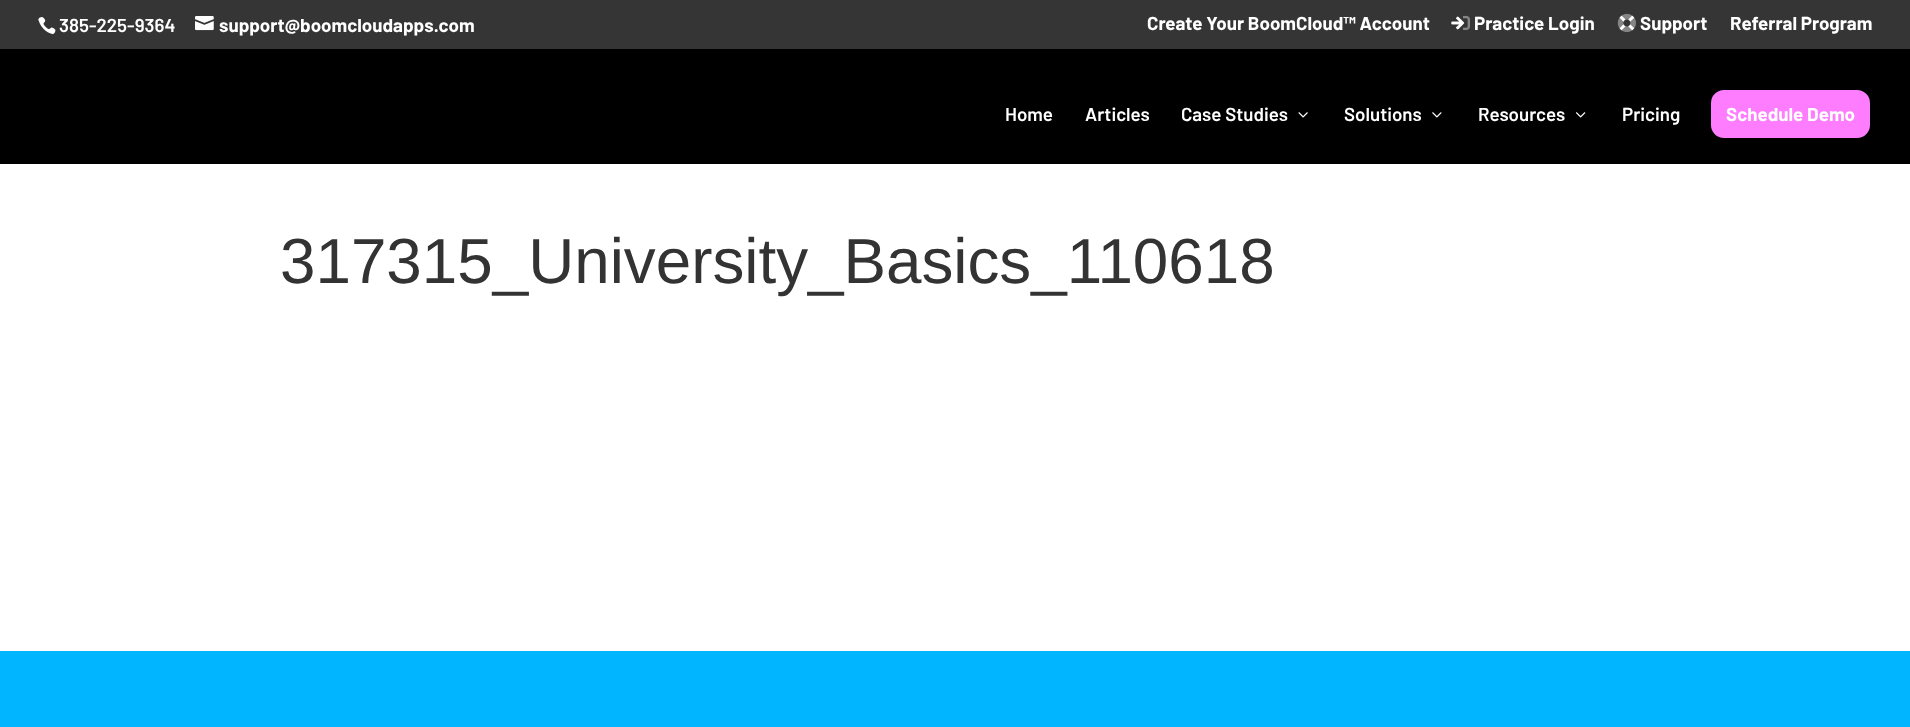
async function draw(canvas) {
	canvas.width = 1910;
	canvas.height = 727;
	const c = canvas.getContext('2d');
	c.miterLimit = 4;
	c.fontKerning = 'normal';
	async function loadImage(src) {
		const img = new Image();
		img.src = src;
		await img.decode();
		return img;
	}

	c.fillStyle = '#fff';
	c.fillRect(0, 0, 1910, 727);
	c.fillStyle = '#353535';
	c.fillRect(0, 0, 1910, 49);
	c.drawImage(await loadImage('img1.png'), 38, 17, 18, 18);
	c.font = '600 18.75px Barlow';
	c.fillStyle = '#fff';
	c.fillText('385-225-9364', 59, 32);
	c.drawImage(await loadImage('img2.png'), 195, 16, 19, 15);
	c.font = 'bold 18.75px Barlow';
	c.fillText('support@boomcloudapps.com', 219, 32);
	c.fillText('Create Your BoomCloud™ Account', 1147, 30);
	c.drawImage(await loadImage('img3.png'), 1451, 16, 14, 14);
	c.drawImage(await loadImage('img4.png'), 1463, 15, 7, 15);
	c.fillText('Practice Login', 1474, 30);
	c.drawImage(await loadImage('img6.png'), 1619, 15, 16, 16);
	c.drawImage(await loadImage('img5.png'), 1617, 13, 19, 19);
	c.fillText('Support', 1640, 30);
	c.fillText('Referral Program', 1730, 30);
	c.fillStyle = '#000';
	c.fillRect(0, 49, 1910, 115);
	c.font = '600 18.75px Barlow';
	c.fillStyle = '#fff';
	for (const [text, x, y] of [
		['Home', 1005, 121],
		['Articles', 1085, 121],
		['Case Studies', 1181, 121],
	]) {
		c.fillText(text, x, y);
	}
	c.drawImage(await loadImage('img7.png'), 1298, 112, 10, 6);
	c.fillText('Solutions', 1344, 121);
	c.drawImage(await loadImage('img8.png'), 1432, 112, 10, 6);
	c.fillText('Resources', 1478, 121);
	c.drawImage(await loadImage('img9.png'), 1576, 112, 10, 6);
	c.fillText('Pricing', 1622, 121);
	c.fillStyle = '#fe7cfe';
	c.beginPath();
	c.roundRect(1712.5, 91.5, 156, 45, 11.5);
	c.fill();
	c.strokeStyle = '#fe7cfe';
	c.lineWidth = 3;
	c.stroke();
	c.font = 'bold 18.75px Barlow';
	c.fillStyle = '#fff';
	c.fillText('Schedule Demo', 1726, 121);
	c.font = '63.75px Liberation Sans';
	c.fillStyle = '#333';
	c.fillText('317315_University_Basics_110618', 280, 283);
	c.fillStyle = '#01b5ff';
	c.fillRect(0, 651, 1910, 76);
}

draw(document.querySelector('canvas'));
